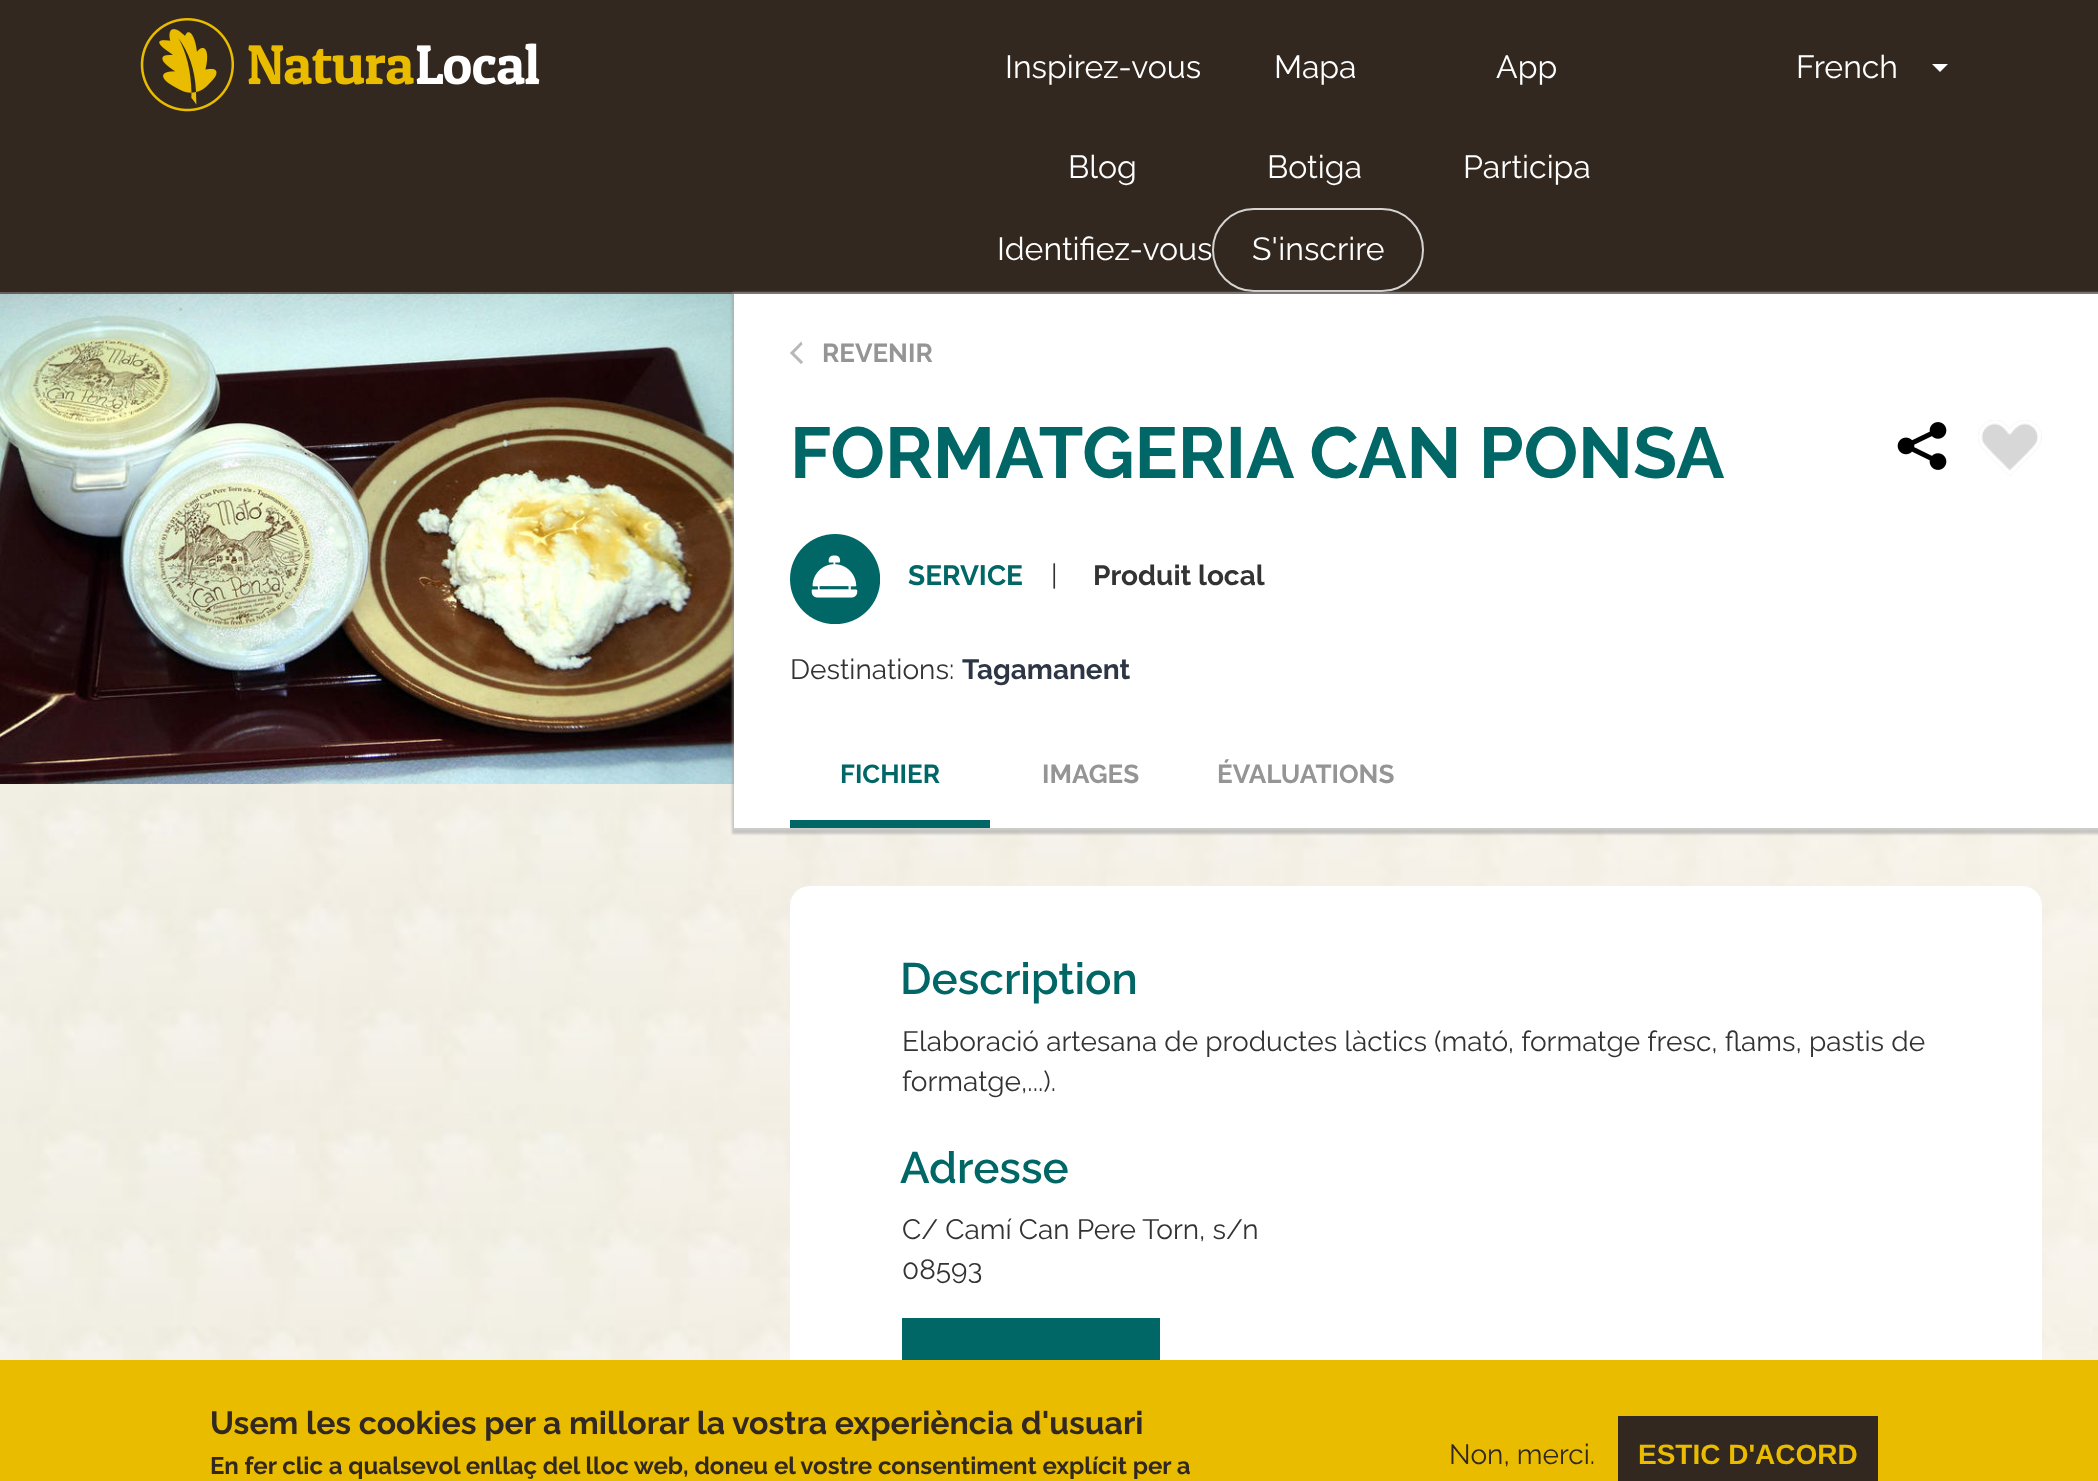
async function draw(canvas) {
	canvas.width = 2098;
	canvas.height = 1481;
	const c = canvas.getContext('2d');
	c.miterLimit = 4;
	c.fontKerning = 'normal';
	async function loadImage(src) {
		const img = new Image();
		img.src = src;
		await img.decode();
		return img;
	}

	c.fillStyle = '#322820';
	c.fillRect(0, 0, 2098, 1481);
	c.fillStyle = '#65605c';
	c.fillRect(0, 292, 2098, 2);
	c.drawImage(await loadImage('img1.png'), 140, 18, 400, 94);
	c.font = '32px Raleway';
	c.fillStyle = '#fff';
	for (const [text, x, y] of [
		['Inspirez-vous', 1005, 78],
		['Mapa', 1274, 78],
		['App', 1496, 78],
		['Blog', 1068, 178],
		['Botiga', 1267, 178],
		['Participa', 1463, 178],
		['Identifiez-vous', 997, 260],
	]) {
		c.fillText(text, x, y);
	}
	c.beginPath();
	c.roundRect(1213, 209, 210, 82, 41);
	c.strokeStyle = '#d6d4d2';
	c.lineWidth = 2;
	c.stroke();
	c.fillText('S\'inscrire', 1252, 260);
	c.fillText('French', 1796, 78);
	c.beginPath();
	c.moveTo(1932, 64);
	c.lineTo(1948, 64);
	c.lineTo(1940, 72);
	c.closePath();
	c.fill();
	c.drawImage(await loadImage('img2.png'), 0, 784, 2098, 576);
	c.drawImage(await loadImage('img3.png'), 0, 294, 734, 490);
	c.fillStyle = '#97979780';
	c.filter = 'blur(1px)';
	c.beginPath();
	c.rect(732, 292, 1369, 542);
	c.fill();
	c.filter = 'none';
	c.fillStyle = '#fff';
	c.fillRect(734, 294, 1364, 534);
	c.fillStyle = '#cbcbcb';
	c.fillRect(734, 828, 1364, 2);
	c.beginPath();
	c.moveTo(801, 363);
	c.lineTo(791, 353);
	c.lineTo(801, 343);
	c.lineTo(801.5, 344);
	c.lineTo(793, 353);
	c.lineTo(802, 362);
	c.closePath();
	c.strokeStyle = '#b8b8b8';
	c.lineWidth = 1.7;
	c.lineCap = 'square';
	c.stroke();
	c.font = 'bold 26px Raleway';
	c.fillStyle = '#959595';
	c.fillText('REVENIR', 822, 362);
	c.font = 'bold 72px Raleway';
	c.fillStyle = '#066';
	c.fillText('FORMATGERIA CAN PONSA', 790, 478);
	c.drawImage(await loadImage('img4.png'), 1897, 422, 50, 48);
	c.drawImage(await loadImage('img5.png'), 1978, 420, 64, 56);
	c.drawImage(await loadImage('img6.png'), 790, 534, 90, 90);
	c.font = 'bold 28px Raleway';
	c.fillText('SERVICE', 908, 585);
	c.font = '28px Raleway';
	c.fillStyle = '#333';
	c.fillText('|', 1051, 585);
	c.font = 'bold 28px Raleway';
	c.fillText('Produit local', 1093, 585);
	c.font = '28px Raleway';
	c.fillText('Destinations:', 790, 679);
	c.font = 'bold 28px Raleway';
	c.fillStyle = '#2c3644';
	c.fillText('Tagamanent', 962, 679);
	c.fillStyle = '#066';
	c.fillRect(790, 820, 200, 8);
	c.font = 'bold 26px Raleway';
	c.fillText('FICHIER', 840, 783);
	c.fillStyle = '#959595';
	c.fillText('IMAGES', 1042, 783);
	c.fillText('ÉVALUATIONS', 1217, 783);
	c.fillStyle = '#fff';
	c.beginPath();
	c.roundRect(790, 886, 1252, 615, 20);
	c.fill();
	c.font = '600 44px Raleway';
	c.fillStyle = '#066';
	c.fillText('Description', 900, 994);
	c.font = '28px Raleway';
	c.fillStyle = '#333';
	c.fillText('Elaboració artesana de productes làctics (mató, formatge fresc, flams, pastis de', 902, 1051);
	c.fillText('formatge,...).', 902, 1091);
	c.font = '600 44px Raleway';
	c.fillStyle = '#066';
	c.fillText('Adresse', 900, 1183);
	c.font = '28px Raleway';
	c.fillStyle = '#333';
	c.fillText('C/ Camí Can Pere Torn, s/n', 902, 1239);
	c.fillText('08593', 902, 1279);
	c.fillStyle = '#066';
	c.fillRect(902, 1318, 258, 42);
	c.fillStyle = '#e9bc00';
	c.fillRect(0, 1360, 2098, 121);
	c.font = 'bold 32px Raleway';
	c.fillStyle = '#322820';
	c.fillText('Usem les cookies per a millorar la vostra experiència d\'usuari', 210, 1434);
	c.font = 'bold 24px Raleway';
	c.fillText('En fer clic a qualsevol enllaç del lloc web, doneu el vostre consentiment explícit per a', 210, 1474);
	c.font = '28px Raleway';
	c.fillText('Non, merci.', 1449, 1464);
	c.fillRect(1618, 1416, 260, 65);
	c.font = 'bold 28px Liberation Sans';
	c.fillStyle = '#e9bc00';
	c.fillText('ESTIC D\'ACORD', 1638, 1464);
}

draw(document.querySelector('canvas'));
